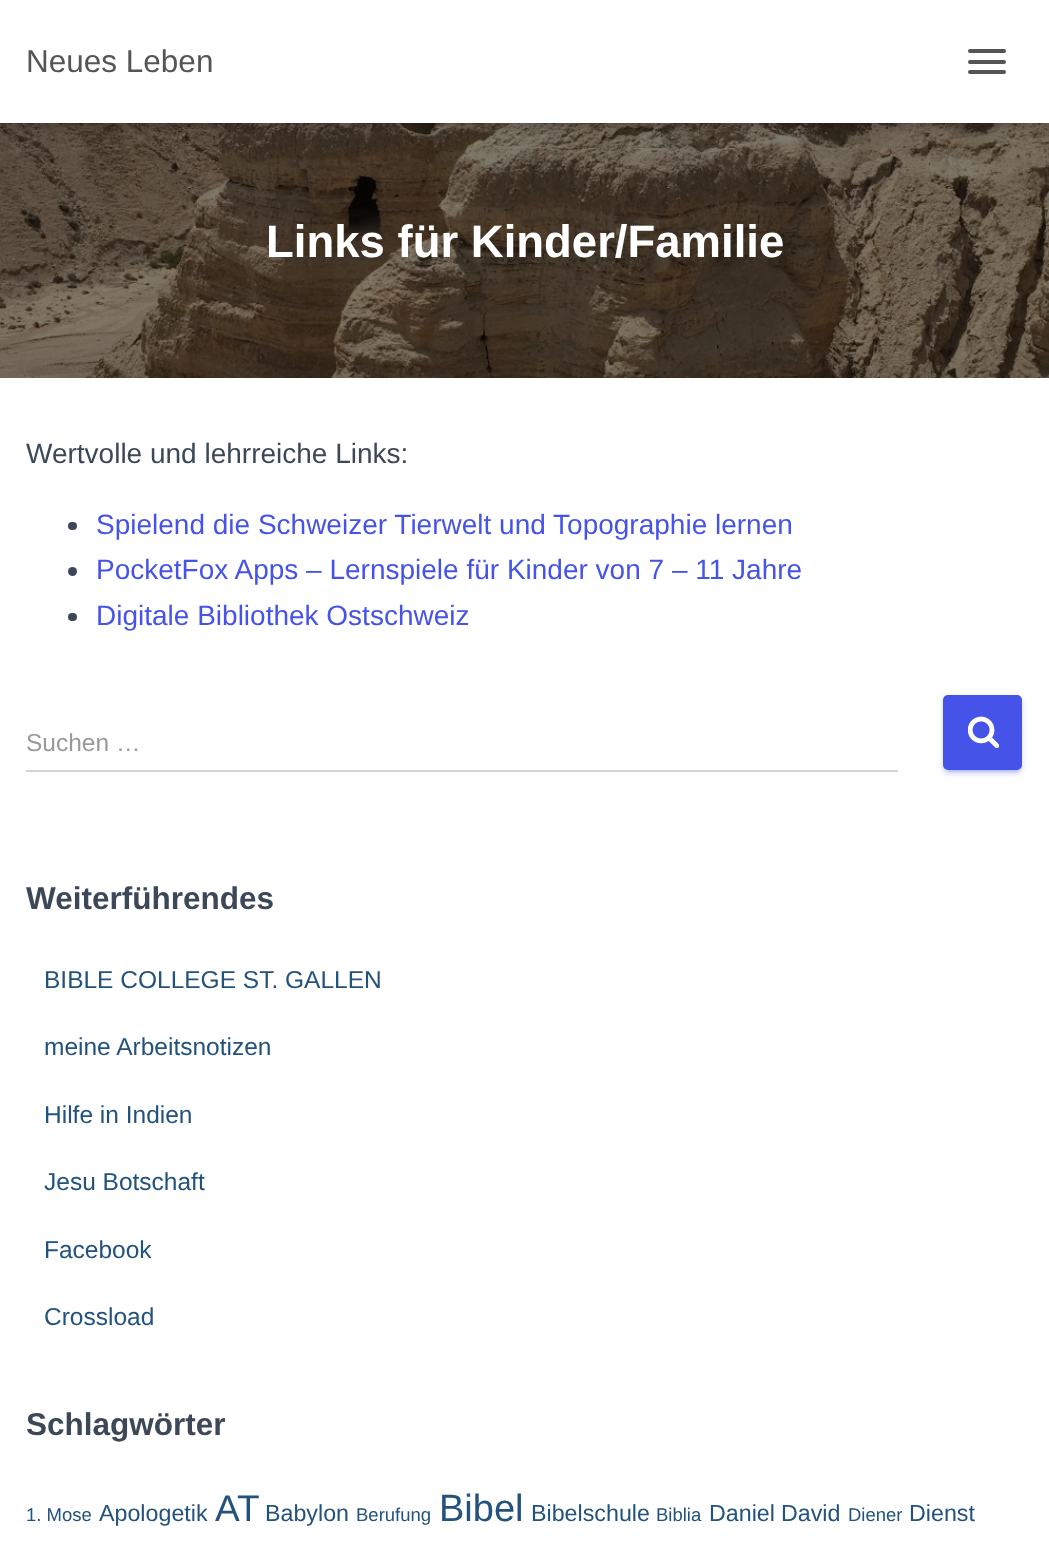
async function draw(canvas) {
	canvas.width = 1049;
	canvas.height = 1564;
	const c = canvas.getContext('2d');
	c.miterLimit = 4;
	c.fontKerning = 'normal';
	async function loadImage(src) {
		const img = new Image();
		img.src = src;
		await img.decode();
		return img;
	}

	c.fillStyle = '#fff';
	c.fillRect(0, 0, 1049, 1564);
	c.drawImage(await loadImage('img1.png'), 0, 123, 1049, 255);
	c.fillStyle = '#0000001a';
	c.filter = 'blur(4.5px)';
	c.beginPath();
	c.rect(4, 11, 1043, 115);
	c.fill();
	c.filter = 'none';
	c.fillStyle = '#0000001f';
	c.filter = 'blur(9px)';
	c.beginPath();
	c.rect(0, 2, 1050, 122);
	c.fill();
	c.filter = 'none';
	c.fillStyle = '#0000006b';
	c.filter = 'blur(9px)';
	c.beginPath();
	c.rect(11, 12, 1029, 102);
	c.fill();
	c.filter = 'none';
	c.fillStyle = '#fff';
	c.fillRect(0, 0, 1049, 123);
	c.font = '31.5px Liberation Sans';
	c.fillStyle = '#555';
	c.fillText('Neues Leben', 26, 72);
	c.beginPath();
	c.roundRect(968, 49, 38, 4, 2);
	c.fill();
	c.beginPath();
	c.roundRect(968, 60, 38, 4, 2);
	c.fill();
	c.beginPath();
	c.roundRect(968, 70, 38, 4, 2);
	c.fill();
	c.font = 'bold 45.5px Liberation Sans';
	c.fillStyle = '#fff';
	c.fillText('Links für Kinder/Familie', 266, 257);
	c.fillStyle = '#0000001f';
	c.filter = 'blur(26px)';
	c.beginPath();
	c.rect(-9, 380, 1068, 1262);
	c.fill();
	c.filter = 'none';
	c.fillStyle = '#fff';
	c.fillRect(0, 378, 1049, 1186);
	c.font = '28px Liberation Sans';
	c.fillStyle = '#3c4858';
	c.fillText('Wertvolle und lehrreiche Links:', 26, 463);
	c.beginPath();
	c.roundRect(68, 522, 9, 8, 4);
	c.fill();
	c.fillStyle = '#4553e8';
	c.fillText('Spielend die Schweizer Tierwelt und Topographie lernen', 96, 534);
	c.fillStyle = '#3c4858';
	c.beginPath();
	c.arc(72.5, 571.5, 4.5, 0, 2 * Math.PI);
	c.fill();
	c.fillStyle = '#4553e8';
	c.fillText('PocketFox Apps – Lernspiele für Kinder von 7 – 11 Jahre', 96, 579);
	c.fillStyle = '#3c4858';
	c.beginPath();
	c.roundRect(68, 613, 9, 8, 4);
	c.fill();
	c.fillStyle = '#4553e8';
	c.fillText('Digitale Bibliothek Ostschweiz', 96, 625);
	c.fillStyle = '#d2d2d2';
	c.fillRect(26, 770, 872, 2);
	c.font = '24.5px Liberation Sans';
	c.fillStyle = '#999';
	c.fillText('Suchen …', 26, 751);
	c.fillStyle = '#4553e81f';
	c.filter = 'blur(4.5px)';
	c.beginPath();
	c.roundRect(943, 697, 79, 75, 5);
	c.fill();
	c.filter = 'none';
	c.fillStyle = '#4553e833';
	c.filter = 'blur(1px)';
	c.beginPath();
	c.roundRect(947, 704, 72, 68, 2);
	c.fill();
	c.filter = 'none';
	c.fillStyle = '#4553e824';
	c.filter = 'blur(2px)';
	c.beginPath();
	c.roundRect(943, 698, 79, 76, 5);
	c.fill();
	c.filter = 'none';
	c.fillStyle = '#4553e8';
	c.beginPath();
	c.roundRect(943, 695, 79, 75, 5);
	c.fill();
	c.drawImage(await loadImage('img2.png'), 968, 716, 31, 33);
	c.font = 'bold 31.5px Liberation Sans';
	c.fillStyle = '#3c4858';
	c.fillText('Weiterführendes', 26, 909);
	c.font = '24.5px Liberation Sans';
	c.fillStyle = '#23527c';
	for (const [text, x, y] of [
		['BIBLE COLLEGE ST. GALLEN', 44, 988],
		['meine Arbeitsnotizen', 44, 1055],
		['Hilfe in Indien', 44, 1123],
		['Jesu Botschaft', 44, 1190],
		['Facebook', 44, 1258],
		['Crossload', 44, 1325],
	]) {
		c.fillText(text, x, y);
	}
	c.font = 'bold 31.5px Liberation Sans';
	c.fillStyle = '#3c4858';
	c.fillText('Schlagwörter', 26, 1435);
	c.font = '18.5px Liberation Sans';
	c.fillStyle = '#23527c';
	c.fillText('1. Mose', 26, 1521);
	c.font = '23.25px Liberation Sans';
	c.fillText('Apologetik', 99, 1521);
	c.font = '37px Liberation Sans';
	c.fillText('AT', 215, 1521);
	c.font = '23.25px Liberation Sans';
	c.fillText('Babylon', 265, 1521);
	c.font = '18.5px Liberation Sans';
	c.fillText('Berufung', 356, 1521);
	c.font = '38px Liberation Sans';
	c.fillText('Bibel', 439, 1521);
	c.font = '23.25px Liberation Sans';
	c.fillText('Bibelschule', 531, 1521);
	c.font = '18.5px Liberation Sans';
	c.fillText('Biblia', 656, 1521);
	c.font = '23.25px Liberation Sans';
	c.fillText('Daniel', 709, 1521);
	c.fillText('David', 781, 1521);
	c.font = '18.5px Liberation Sans';
	c.fillText('Diener', 848, 1521);
	c.font = '23.25px Liberation Sans';
	c.fillText('Dienst', 909, 1521);
}

draw(document.querySelector('canvas'));
